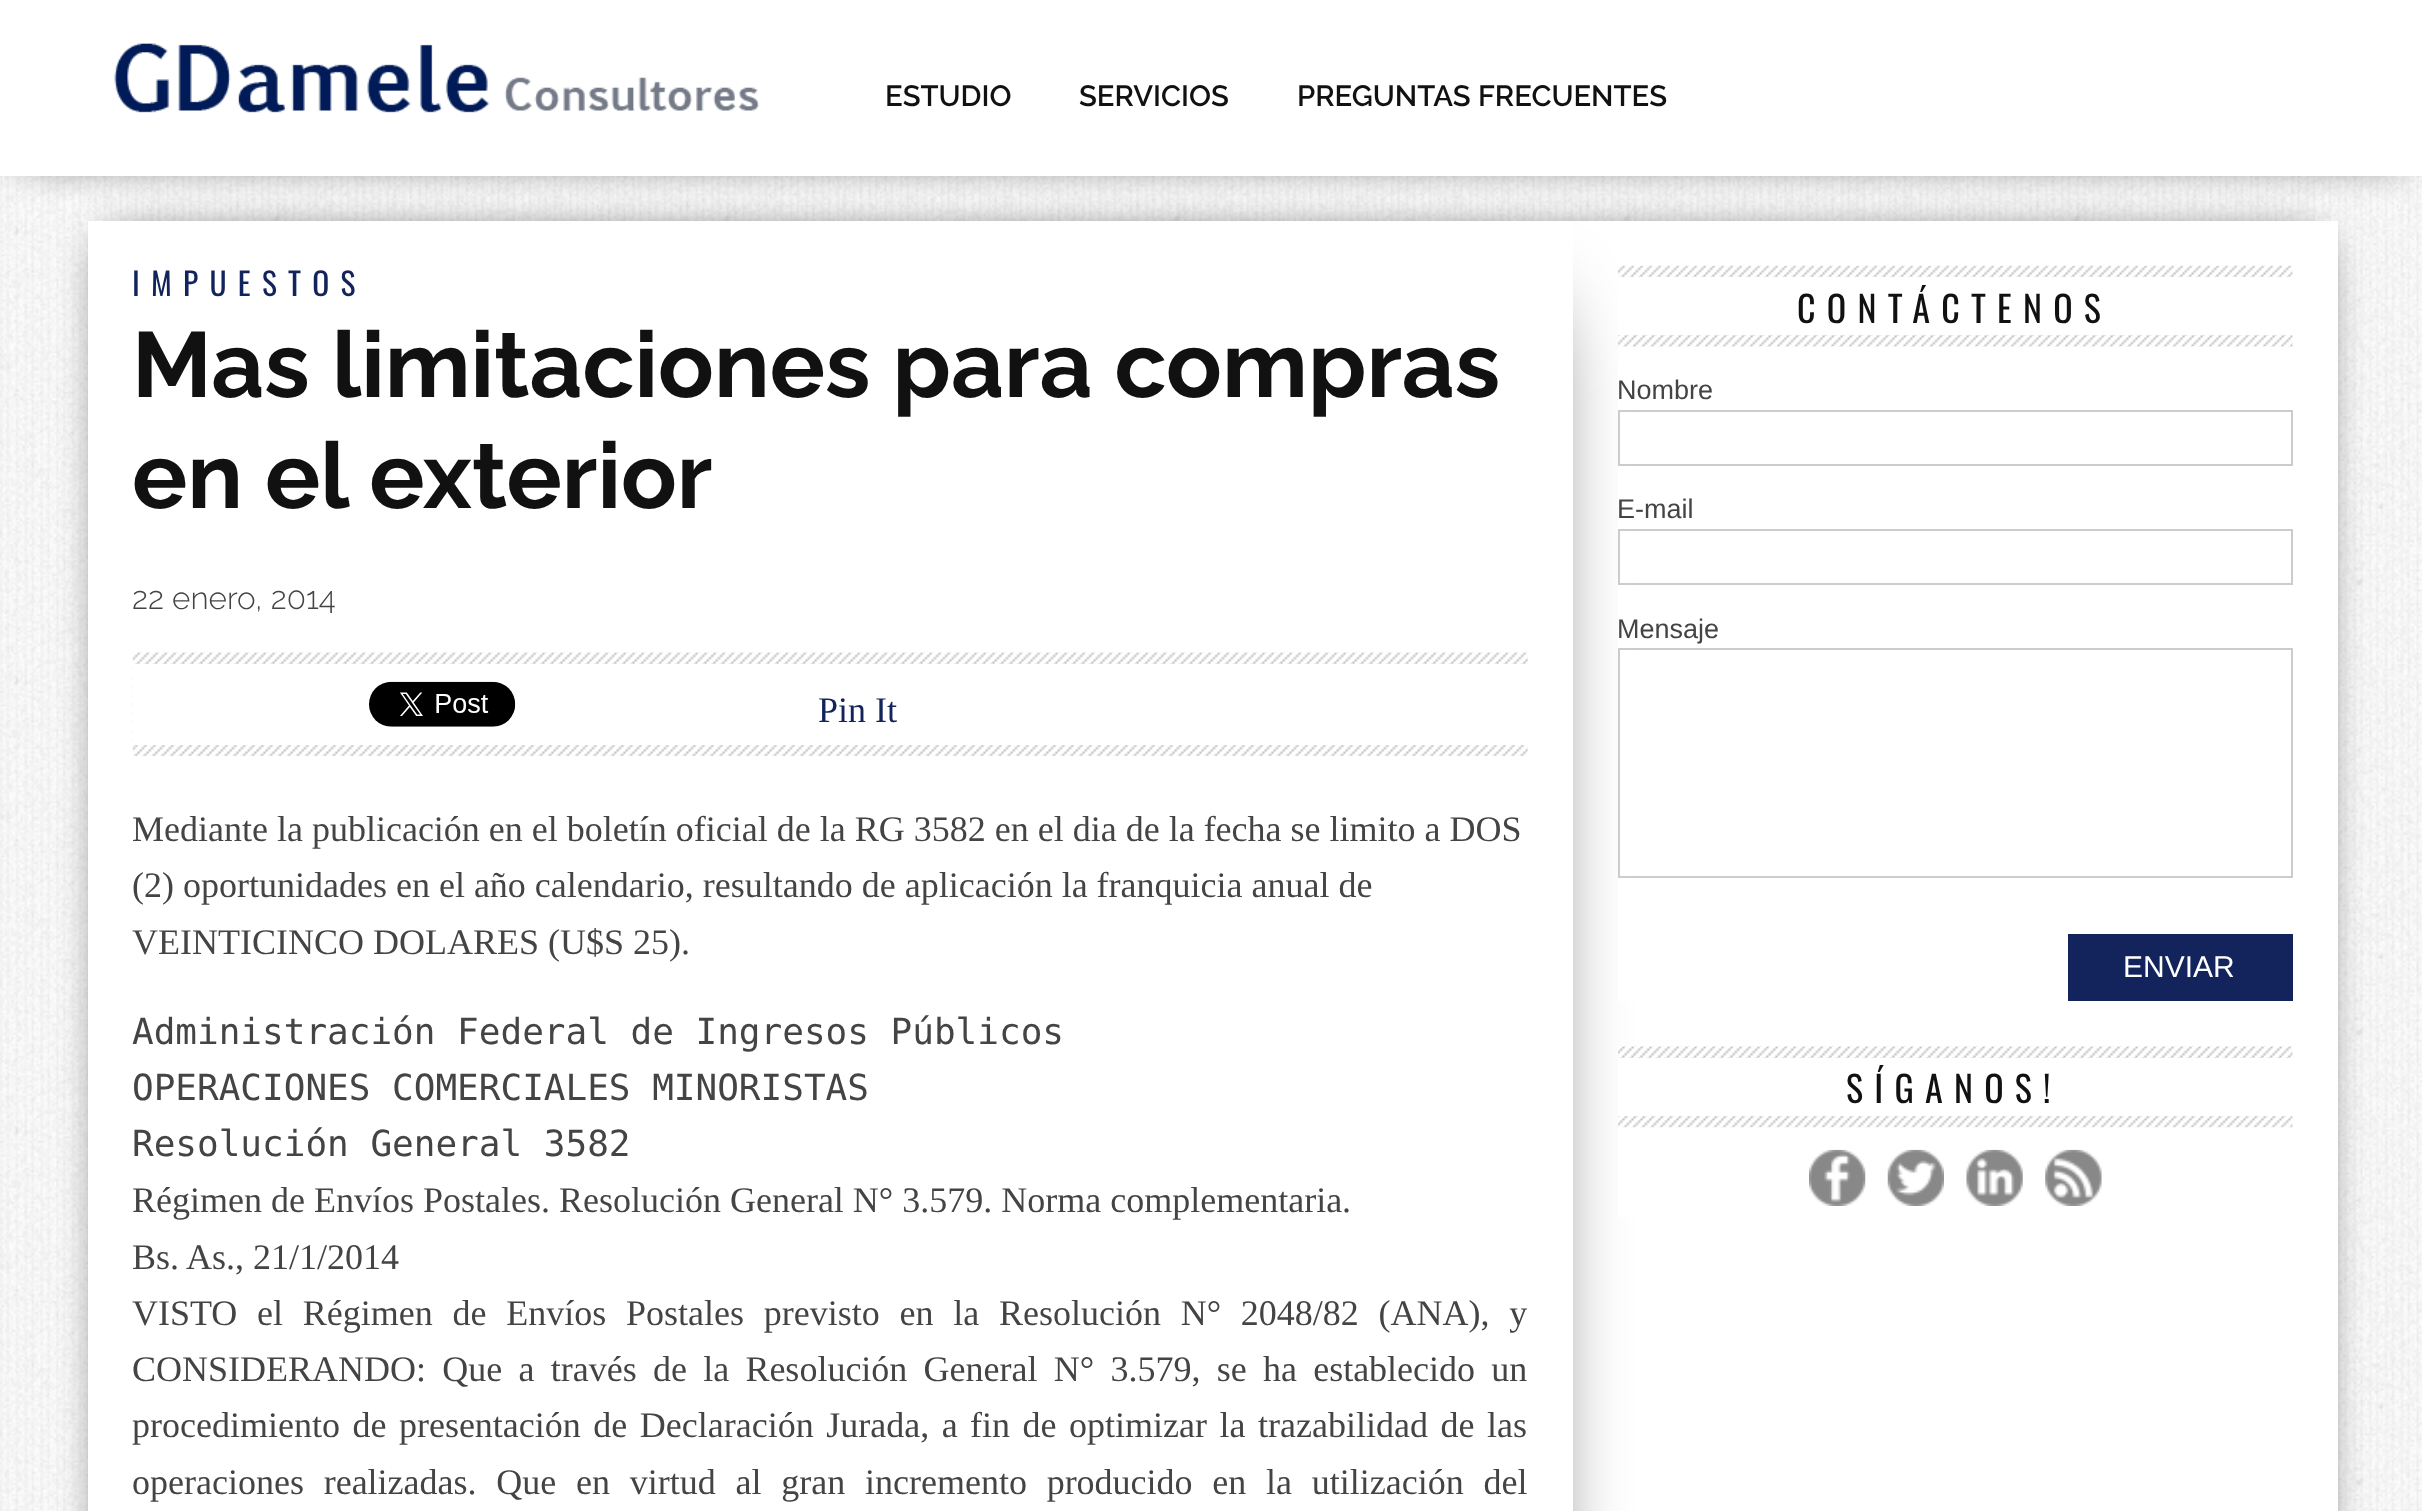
async function draw(canvas) {
	canvas.width = 2422;
	canvas.height = 1511;
	const c = canvas.getContext('2d');
	c.miterLimit = 4;
	c.fontKerning = 'normal';
	async function loadImage(src) {
		const img = new Image();
		img.src = src;
		await img.decode();
		return img;
	}

	c.fillStyle = '#fff';
	c.fillRect(0, 0, 2422, 1511);
	c.drawImage(await loadImage('img2.png'), 0, 176, 2422, 1335);
	c.fillStyle = '#000';
	c.filter = 'blur(22.5px)';
	c.beginPath();
	c.rect(110, 243, 2205, 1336);
	c.fill();
	c.filter = 'none';
	c.fillStyle = '#fff';
	c.fillRect(1573, 221, 765, 1290);
	c.fillStyle = '#000';
	c.filter = 'blur(45px)';
	c.beginPath();
	c.rect(223, 311, 1305, 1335);
	c.fill();
	c.filter = 'none';
	c.fillStyle = '#fff';
	c.fillRect(88, 221, 1485, 1290);
	c.fillStyle = '#000';
	c.filter = 'blur(22.5px)';
	c.beginPath();
	c.rect(23, 23, 2378, 130);
	c.fill();
	c.filter = 'none';
	c.fillStyle = '#fff';
	c.fillRect(0, 0, 2422, 176);
	c.drawImage(await loadImage('img1.png'), 114, 43, 646, 70);
	c.font = '600 29.25px Raleway';
	c.fillStyle = '#111';
	for (const [text, x, y] of [
		['ESTUDIO', 885, 106],
		['SERVICIOS', 1079, 106],
		['PREGUNTAS FRECUENTES', 1297, 106],
	]) {
		c.fillText(text, x, y);
	}
	c.letterSpacing = '11.25px';
	c.font = '31.5px Oswald';
	c.fillStyle = '#13235b';
	c.fillText('IMPUESTOS', 132, 296);
	c.letterSpacing = '0px';
	c.font = 'bold 92.25px Raleway';
	c.fillStyle = '#111';
	c.fillText('Mas limitaciones para compras', 132, 397);
	c.fillText('en el exterior', 132, 508);
	c.font = '300 31.5px Raleway';
	c.fillStyle = '#444';
	c.fillText('22 enero, 2014', 132, 609);
	c.drawImage(await loadImage('img3.png'), 132, 652, 1396, 104);
	c.fillStyle = '#fff';
	c.fillRect(133, 664, 1395, 81);
	c.drawImage(await loadImage('img4.png'), 369, 681, 147, 46);
	c.font = '36px Liberation Serif';
	c.fillStyle = '#13235b';
	c.fillText('Pin It', 818, 722);
	c.fillStyle = '#444';
	for (const [text, x, y] of [
		['Mediante la publicación en el boletín oficial de la RG 3582 en el dia de la fecha se limito a DOS', 132, 841],
		['(2) oportunidades en el año calendario, resultando de aplicación la franquicia anual de', 132, 897],
		['VEINTICINCO DOLARES (U$S 25).', 132, 954],
	]) {
		c.fillText(text, x, y);
	}
	c.font = '36px DejaVu Sans Mono';
	for (const [text, x, y] of [
		['Administración Federal de Ingresos Públicos', 132, 1044],
		['OPERACIONES COMERCIALES MINORISTAS', 132, 1100],
		['Resolución General 3582', 132, 1156],
	]) {
		c.fillText(text, x, y);
	}
	c.font = '36px Liberation Serif';
	c.fillText('Régimen de Envíos Postales. Resolución General N° 3.579. Norma complementaria.', 132, 1212);
	c.fillText('Bs. As., 21/1/2014', 132, 1269);
	c.wordSpacing = '10.75px';
	c.fillText('VISTO el Régimen de Envíos Postales previsto en la Resolución N° 2048/82 (ANA), y', 132, 1325);
	c.wordSpacing = '7.25px';
	c.fillText('CONSIDERANDO: Que a través de la Resolución General N° 3.579, se ha establecido un', 132, 1381);
	c.wordSpacing = '3.5px';
	c.fillText('procedimiento de presentación de Declaración Jurada, a fin de optimizar la trazabilidad de las', 132, 1437);
	c.wordSpacing = '10.75px';
	c.fillText('operaciones realizadas. Que en virtud al gran incremento producido en la utilización del', 132, 1494);
	c.fillStyle = '#fff';
	c.fillRect(1618, 306, 15, 695);
	c.drawImage(await loadImage('img5.png'), 1618, 265, 675, 82);
	c.fillRect(1618, 277, 675, 58);
	c.letterSpacing = '11.25px';
	c.wordSpacing = '0px';
	c.font = '36px Oswald';
	c.fillStyle = '#111';
	c.fillText('CONTÁCTENOS', 1797, 323);
	c.letterSpacing = '0px';
	c.font = '27px Liberation Sans';
	c.fillStyle = '#444';
	c.fillText('Nombre', 1617, 399);
	c.strokeStyle = '#ccc';
	c.lineWidth = 2;
	c.strokeRect(1619, 411, 673, 54);
	c.fillText('E-mail', 1617, 518);
	c.strokeRect(1619, 530, 673, 54);
	c.fillText('Mensaje', 1617, 638);
	c.strokeRect(1619, 649, 673, 228);
	c.fillStyle = '#13235b';
	c.fillRect(2068, 934, 225, 67);
	c.font = '30px Liberation Sans';
	c.fillStyle = '#fff';
	c.fillText('ENVIAR', 2123, 977);
	c.fillRect(1618, 1046, 15, 171);
	c.drawImage(await loadImage('img6.png'), 1618, 1046, 675, 82);
	c.fillRect(1618, 1058, 675, 58);
	c.letterSpacing = '11.25px';
	c.font = '36px Oswald';
	c.fillStyle = '#111';
	c.fillText('SÍGANOS!', 1846, 1103);
	c.drawImage(await loadImage('img7.png'), 1809, 1149, 57, 57);
	c.drawImage(await loadImage('img8.png'), 1887, 1149, 57, 57);
	c.drawImage(await loadImage('img9.png'), 1966, 1149, 57, 57);
	c.drawImage(await loadImage('img10.png'), 2045, 1149, 57, 57);
}

draw(document.querySelector('canvas'));
